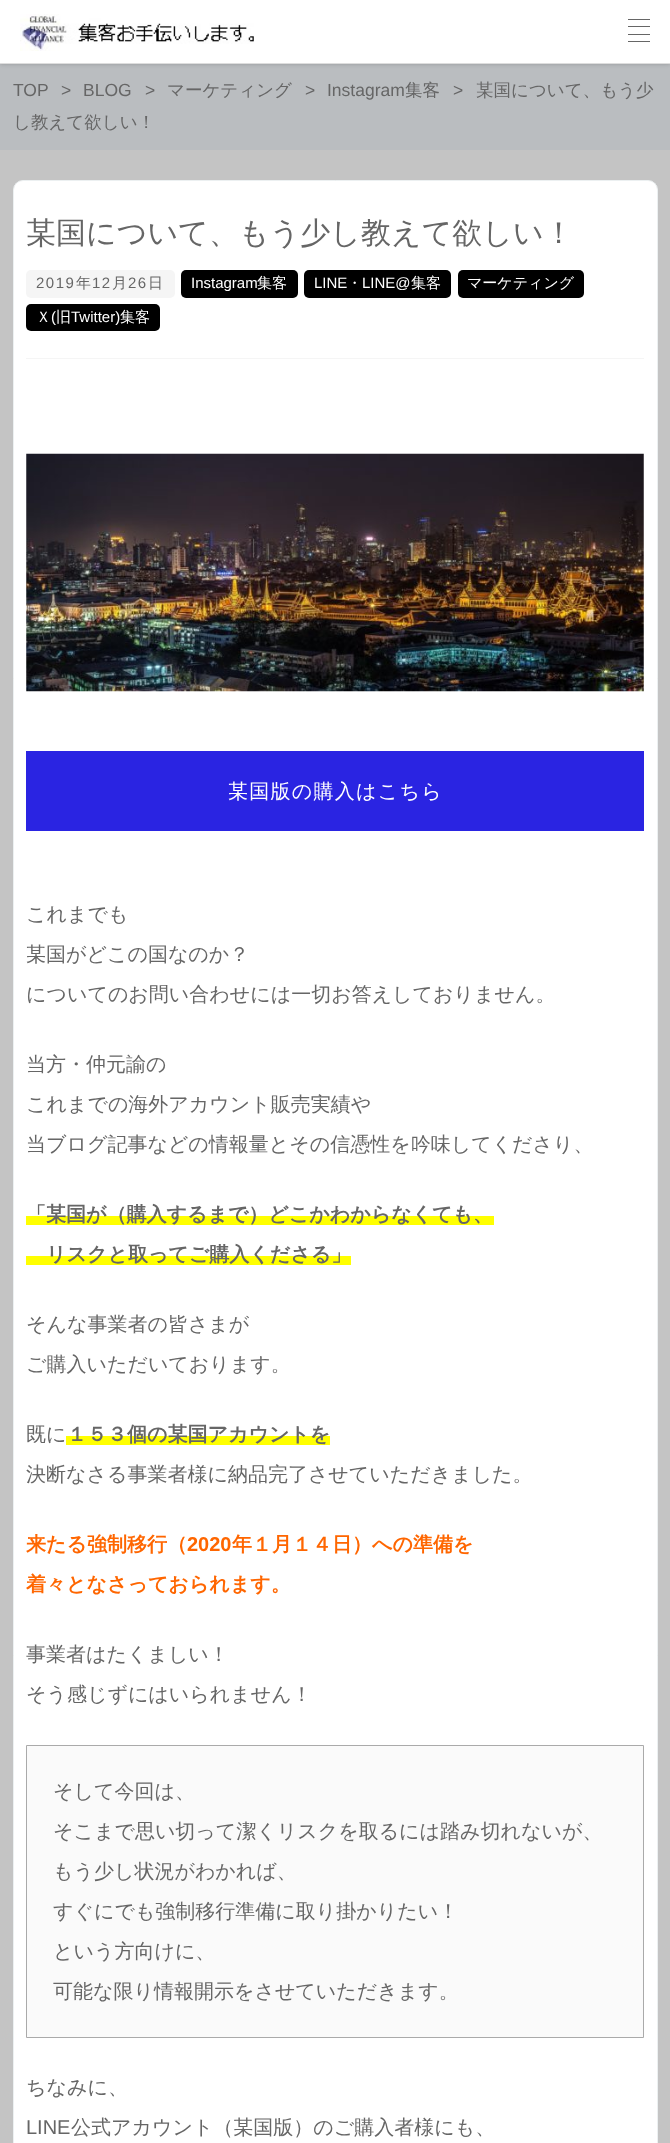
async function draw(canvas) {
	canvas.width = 670;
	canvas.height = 2143;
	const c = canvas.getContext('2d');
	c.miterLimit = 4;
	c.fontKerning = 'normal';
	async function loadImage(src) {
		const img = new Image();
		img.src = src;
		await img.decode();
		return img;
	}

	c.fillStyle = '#c4c4c4';
	c.fillRect(0, 0, 670, 2143);
	c.fillStyle = '#babdc0';
	c.fillRect(0, 64, 670, 86);
	c.fillStyle = '#00000033';
	c.filter = 'blur(2px)';
	c.beginPath();
	c.rect(0, 0, 670, 64);
	c.fill();
	c.filter = 'none';
	c.fillStyle = '#fff';
	c.fillRect(0, 0, 670, 63);
	c.fillStyle = '#ddd';
	c.fillRect(0, 63, 670, 1);
	c.drawImage(await loadImage('img1.png'), 20, 14, 234, 37);
	for (const [x, y, w, h, color] of [
		[628, 26, 22, 1, '#666'],
		[628, 34, 22, 1, '#666'],
		[628, 19, 22, 1, '#666'],
		[628, 41, 22, 1, '#666'],
	]) {
		c.fillStyle = color;
		c.fillRect(x, y, w, h);
	}
	c.font = '17.5px Liberation Sans';
	for (const [text, x, y] of [
		['TOP', 13, 96],
		['>', 61, 96],
		['BLOG', 83, 96],
		['>', 145, 96],
	]) {
		c.fillText(text, x, y);
	}
	c.font = '500 17.5px WenQuanYi Zen Hei';
	c.fillText('マーケティング', 167, 96);
	c.font = '17.5px Liberation Sans';
	c.fillText('>', 305, 96);
	c.fillText('Instagram', 327, 96);
	c.font = '500 17.5px WenQuanYi Zen Hei';
	c.fillText('集客', 405, 96);
	c.font = '17.5px Liberation Sans';
	c.fillText('>', 453, 96);
	c.font = '500 17.5px WenQuanYi Zen Hei';
	c.fillText('某国について、もう少', 476, 96);
	c.fillText('し教えて欲しい！', 13, 128);
	c.fillStyle = '#fff';
	c.beginPath();
	c.roundRect(13.5, 180.5, 644, 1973, 9.5);
	c.fill();
	c.strokeStyle = '#ecf0f1';
	c.stroke();
	c.font = '500 30px WenQuanYi Zen Hei';
	c.fillStyle = '#666';
	c.fillText('某国について、もう少し教えて欲しい！', 26, 243);
	c.fillStyle = '#f5f5f5';
	c.beginPath();
	c.roundRect(26, 270, 149, 28, 5);
	c.fill();
	c.letterSpacing = '1.5px';
	c.font = '15px Liberation Sans';
	c.fillStyle = '#666';
	c.fillText('2019', 36, 288);
	c.font = '500 15px WenQuanYi Zen Hei';
	c.fillText('年', 76, 288);
	c.font = '15px Liberation Sans';
	c.fillText('12', 92, 288);
	c.font = '500 15px WenQuanYi Zen Hei';
	c.fillText('月', 112, 288);
	c.font = '15px Liberation Sans';
	c.fillText('26', 128, 288);
	c.font = '500 15px WenQuanYi Zen Hei';
	c.fillText('日', 148, 288);
	c.fillStyle = '#000';
	c.beginPath();
	c.roundRect(181, 270, 117, 28, 5);
	c.fill();
	c.letterSpacing = '0px';
	c.font = '15px Liberation Sans';
	c.fillStyle = '#fff';
	c.fillText('Instagram', 191, 288);
	c.font = '500 15px WenQuanYi Zen Hei';
	c.fillText('集客', 257, 288);
	c.fillStyle = '#000';
	c.beginPath();
	c.roundRect(304, 270, 147, 28, 5);
	c.fill();
	c.font = '15px Liberation Sans';
	c.fillStyle = '#fff';
	c.fillText('LINE', 314, 288);
	c.font = '500 15px WenQuanYi Zen Hei';
	c.fillText('・', 347, 288);
	c.font = '15px Liberation Sans';
	c.fillText('LINE@', 362, 288);
	c.font = '500 15px WenQuanYi Zen Hei';
	c.fillText('集客', 411, 288);
	c.fillStyle = '#000';
	c.beginPath();
	c.roundRect(458, 270, 126, 28, 5);
	c.fill();
	c.fillStyle = '#fff';
	c.fillText('マーケティング', 467, 288);
	c.fillStyle = '#000';
	c.beginPath();
	c.roundRect(26, 304, 134, 27, 5);
	c.fill();
	c.fillStyle = '#fff';
	c.fillText('Ｘ', 36, 322);
	c.font = '15px Liberation Sans';
	c.fillText('(', 51, 322);
	c.font = '500 15px WenQuanYi Zen Hei';
	c.fillText('旧', 56, 322);
	c.font = '15px Liberation Sans';
	c.fillText('Twitter)', 71, 322);
	c.font = '500 15px WenQuanYi Zen Hei';
	c.fillText('集客', 120, 322);
	c.fillStyle = '#f5f5f5';
	c.fillRect(26, 358, 618, 1);
	c.drawImage(await loadImage('img2.png'), 26, 453, 618, 239);
	c.fillStyle = '#2a24e2';
	c.fillRect(26, 751, 618, 80);
	c.letterSpacing = '1.25px';
	c.font = '500 20px WenQuanYi Zen Hei';
	c.fillStyle = '#fff';
	c.fillText('某国版の購入はこちら', 228, 798);
	c.letterSpacing = '0px';
	c.fillStyle = '#666';
	for (const [text, x, y] of [
		['これまでも', 26, 921],
		['某国がどこの国なのか？', 26, 961],
		['についてのお問い合わせには一切お答えしておりません。', 26, 1001],
		['当方・仲元諭の', 26, 1071],
		['これまでの海外アカウント販売実績や', 26, 1111],
		['当ブログ記事などの情報量とその信憑性を吟味してくださり、', 26, 1151],
	]) {
		c.fillText(text, x, y);
	}
	c.fillStyle = '#ff0';
	c.fillRect(26, 1216, 468, 9);
	c.font = 'bold 20px WenQuanYi Zen Hei';
	c.fillStyle = '#666';
	c.fillText('「某国が（購入するまで）どこかわからなくても、', 26, 1221);
	c.fillStyle = '#ff0';
	c.fillRect(26, 1256, 325, 9);
	c.fillStyle = '#666';
	c.fillText('リスクと取ってご購入くださる」', 46, 1261);
	c.font = '500 20px WenQuanYi Zen Hei';
	for (const [text, x, y] of [
		['そんな事業者の皆さまが', 26, 1331],
		['ご購入いただいております。', 26, 1371],
		['既に', 26, 1441],
	]) {
		c.fillText(text, x, y);
	}
	c.fillStyle = '#ff0';
	c.fillRect(66, 1436, 264, 9);
	c.font = 'bold 20px WenQuanYi Zen Hei';
	c.fillStyle = '#666';
	c.fillText('１５３個の某国アカウントを', 67, 1441);
	c.font = '500 20px WenQuanYi Zen Hei';
	c.fillText('決断なさる事業者様に納品完了させていただきました。', 26, 1481);
	c.font = 'bold 20px WenQuanYi Zen Hei';
	c.fillStyle = '#f60';
	c.fillText('来たる強制移行（', 26, 1551);
	c.font = 'bold 20px Liberation Sans';
	c.fillText('2020', 187, 1551);
	c.font = 'bold 20px WenQuanYi Zen Hei';
	c.fillText('年１月１４日）への準備を', 232, 1551);
	c.fillText('着々となさっておられます。', 26, 1591);
	c.font = '500 20px WenQuanYi Zen Hei';
	c.fillStyle = '#666';
	c.fillText('事業者はたくましい！', 26, 1661);
	c.fillText('そう感じずにはいられません！', 26, 1701);
	c.fillStyle = '#fafafa';
	c.beginPath();
	c.rect(26.5, 1745.5, 617, 292);
	c.fill();
	c.strokeStyle = '#aaa';
	c.stroke();
	c.fillStyle = '#666';
	for (const [text, x, y] of [
		['そして今回は、', 53, 1798],
		['そこまで思い切って潔くリスクを取るには踏み切れないが、', 53, 1838],
		['もう少し状況がわかれば、', 53, 1878],
		['すぐにでも強制移行準備に取り掛かりたい！', 53, 1918],
		['という方向けに、', 53, 1958],
		['可能な限り情報開示をさせていただきます。', 53, 1998],
		['ちなみに、', 26, 2094],
	]) {
		c.fillText(text, x, y);
	}
	c.font = '20px Liberation Sans';
	c.fillText('LINE', 26, 2134);
	c.font = '500 20px WenQuanYi Zen Hei';
	c.fillText('公式アカウント（某国版）のご購入者様にも、', 71, 2134);
}

draw(document.querySelector('canvas'));
